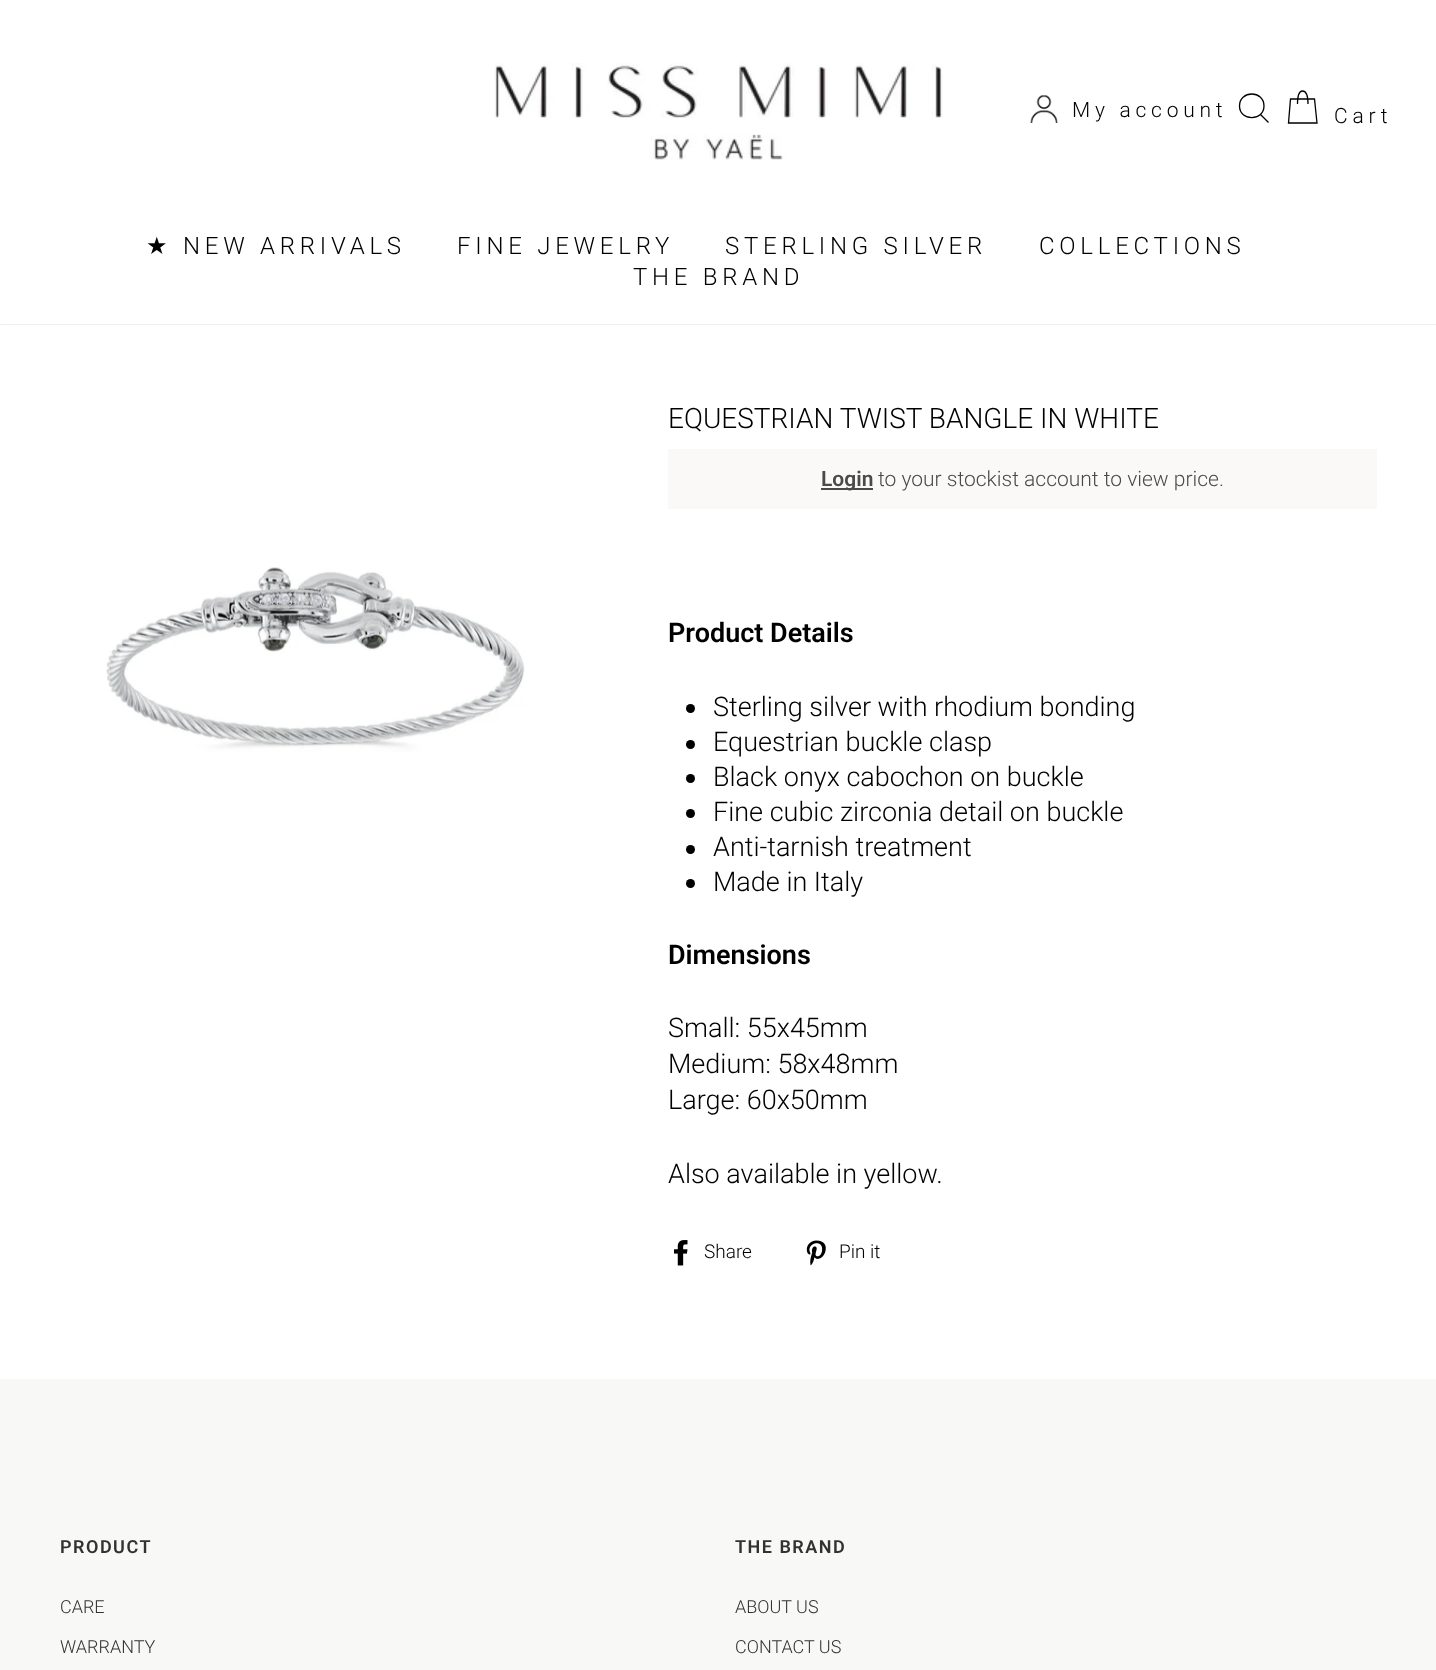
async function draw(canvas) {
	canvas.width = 1436;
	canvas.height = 1670;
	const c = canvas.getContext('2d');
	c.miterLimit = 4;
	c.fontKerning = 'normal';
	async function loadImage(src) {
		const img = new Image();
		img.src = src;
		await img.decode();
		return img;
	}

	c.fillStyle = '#fff';
	c.fillRect(0, 0, 1436, 1670);
	c.save();
	c.beginPath();
	c.rect(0, 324, 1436, 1);
	c.clip();
	c.fillStyle = '#00000033';
	c.filter = 'blur(1px)';
	c.beginPath();
	c.rect(0, 0, 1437, 324);
	c.fill();
	c.filter = 'none';
	c.restore();
	c.drawImage(await loadImage('img1.png'), 494, 63, 449, 97);
	c.drawImage(await loadImage('img2.png'), 1030, 95, 28, 28);
	c.letterSpacing = '4.75px';
	c.font = '300 21px Roboto';
	c.fillStyle = '#000';
	c.fillText('My account', 1072, 117);
	c.beginPath();
	c.moveTo(1264, 106);
	c.bezierCurveTo(1264, 121.5, 1239.5, 121.5, 1239.5, 106);
	c.bezierCurveTo(1239.5, 90, 1264, 90, 1264, 106);
	c.closePath();
	c.moveTo(1268.5, 122.5);
	c.lineTo(1260.5, 114.5);
	c.strokeStyle = '#000';
	c.lineWidth = 1.3;
	c.stroke();
	c.beginPath();
	c.moveTo(1297.5, 104);
	c.bezierCurveTo(1297.5, 93.5, 1299.5, 91, 1302.5, 91);
	c.bezierCurveTo(1305.5, 91, 1308, 93.5, 1308, 104);
	c.moveTo(1290.5, 99);
	c.lineTo(1314.5, 99);
	c.lineTo(1317, 123);
	c.lineTo(1288.5, 123);
	c.closePath();
	c.stroke();
	c.fillText('Cart', 1334, 123);
	c.font = '24px DejaVu Sans';
	c.fillText('★', 146, 254);
	c.font = '300 24px Roboto';
	for (const [text, x, y] of [
		['NEW ARRIVALS', 183, 254],
		['FINE JEWELRY', 457, 254],
		['STERLING SILVER', 725, 254],
		['COLLECTIONS', 1039, 254],
		['THE BRAND', 633, 285],
	]) {
		c.fillText(text, x, y);
	}
	c.drawImage(await loadImage('img3.png'), 106, 567, 419, 185);
	c.letterSpacing = '0px';
	c.font = '300 28px Roboto';
	c.fillText('EQUESTRIAN TWIST BANGLE IN WHITE', 668, 428);
	c.fillStyle = '#faf9f7';
	c.fillRect(668, 449, 709, 60);
	c.fillStyle = '#4a4a4a';
	c.fillRect(821, 488, 52, 2);
	c.font = '600 21px Roboto';
	c.fillText('Login', 821, 486);
	c.font = '300 21px Roboto';
	c.fillText('to your stockist account to view price.', 878, 486);
	c.font = '600 27px Roboto';
	c.fillStyle = '#000';
	c.fillText('Product Details', 668, 642);
	c.beginPath();
	c.arc(690.5, 708.5, 4.5, 0, 2 * Math.PI);
	c.fill();
	c.font = '300 27px Roboto';
	c.fillText('Sterling silver with rhodium bonding', 713, 716);
	c.beginPath();
	c.arc(690.5, 744.5, 4.5, 0, 2 * Math.PI);
	c.fill();
	c.fillText('Equestrian buckle clasp', 713, 751);
	c.beginPath();
	c.arc(690.5, 778.5, 4.5, 0, 2 * Math.PI);
	c.fill();
	c.fillText('Black onyx cabochon on buckle', 713, 786);
	c.beginPath();
	c.arc(690.5, 813.5, 4.5, 0, 2 * Math.PI);
	c.fill();
	c.fillText('Fine cubic zirconia detail on buckle', 713, 821);
	c.beginPath();
	c.arc(690.5, 849.5, 4.5, 0, 2 * Math.PI);
	c.fill();
	c.fillText('Anti-tarnish treatment', 713, 856);
	c.beginPath();
	c.arc(690.5, 883.5, 4.5, 0, 2 * Math.PI);
	c.fill();
	c.fillText('Made in Italy', 713, 891);
	c.font = '600 27px Roboto';
	c.fillText('Dimensions', 668, 964);
	c.font = '300 27px Roboto';
	for (const [text, x, y] of [
		['Small: 55x45mm', 668, 1037],
		['Medium: 58x48mm', 668, 1073],
		['Large: 60x50mm', 668, 1109],
		['Also available in yellow.', 668, 1183],
	]) {
		c.fillText(text, x, y);
	}
	c.drawImage(await loadImage('img4.png'), 674, 1240, 14, 26);
	c.font = '300 19px Roboto';
	c.fillText('Share', 704, 1258);
	c.drawImage(await loadImage('img5.png'), 806, 1240, 20, 26);
	c.fillText('Pin it', 839, 1258);
	c.fillStyle = '#f8f8f6';
	c.fillRect(0, 1379, 1436, 291);
	c.letterSpacing = '1.5px';
	c.font = '600 18px Roboto';
	c.fillStyle = '#333232';
	c.fillText('PRODUCT', 60, 1553);
	c.letterSpacing = '0px';
	c.font = '300 18px Roboto';
	c.fillText('CARE', 60, 1613);
	c.fillText('WARRANTY', 60, 1653);
	c.letterSpacing = '1.5px';
	c.font = '600 18px Roboto';
	c.fillText('THE BRAND', 735, 1553);
	c.letterSpacing = '0px';
	c.font = '300 18px Roboto';
	c.fillText('ABOUT US', 735, 1613);
	c.fillText('CONTACT US', 735, 1653);
}

draw(document.querySelector('canvas'));
